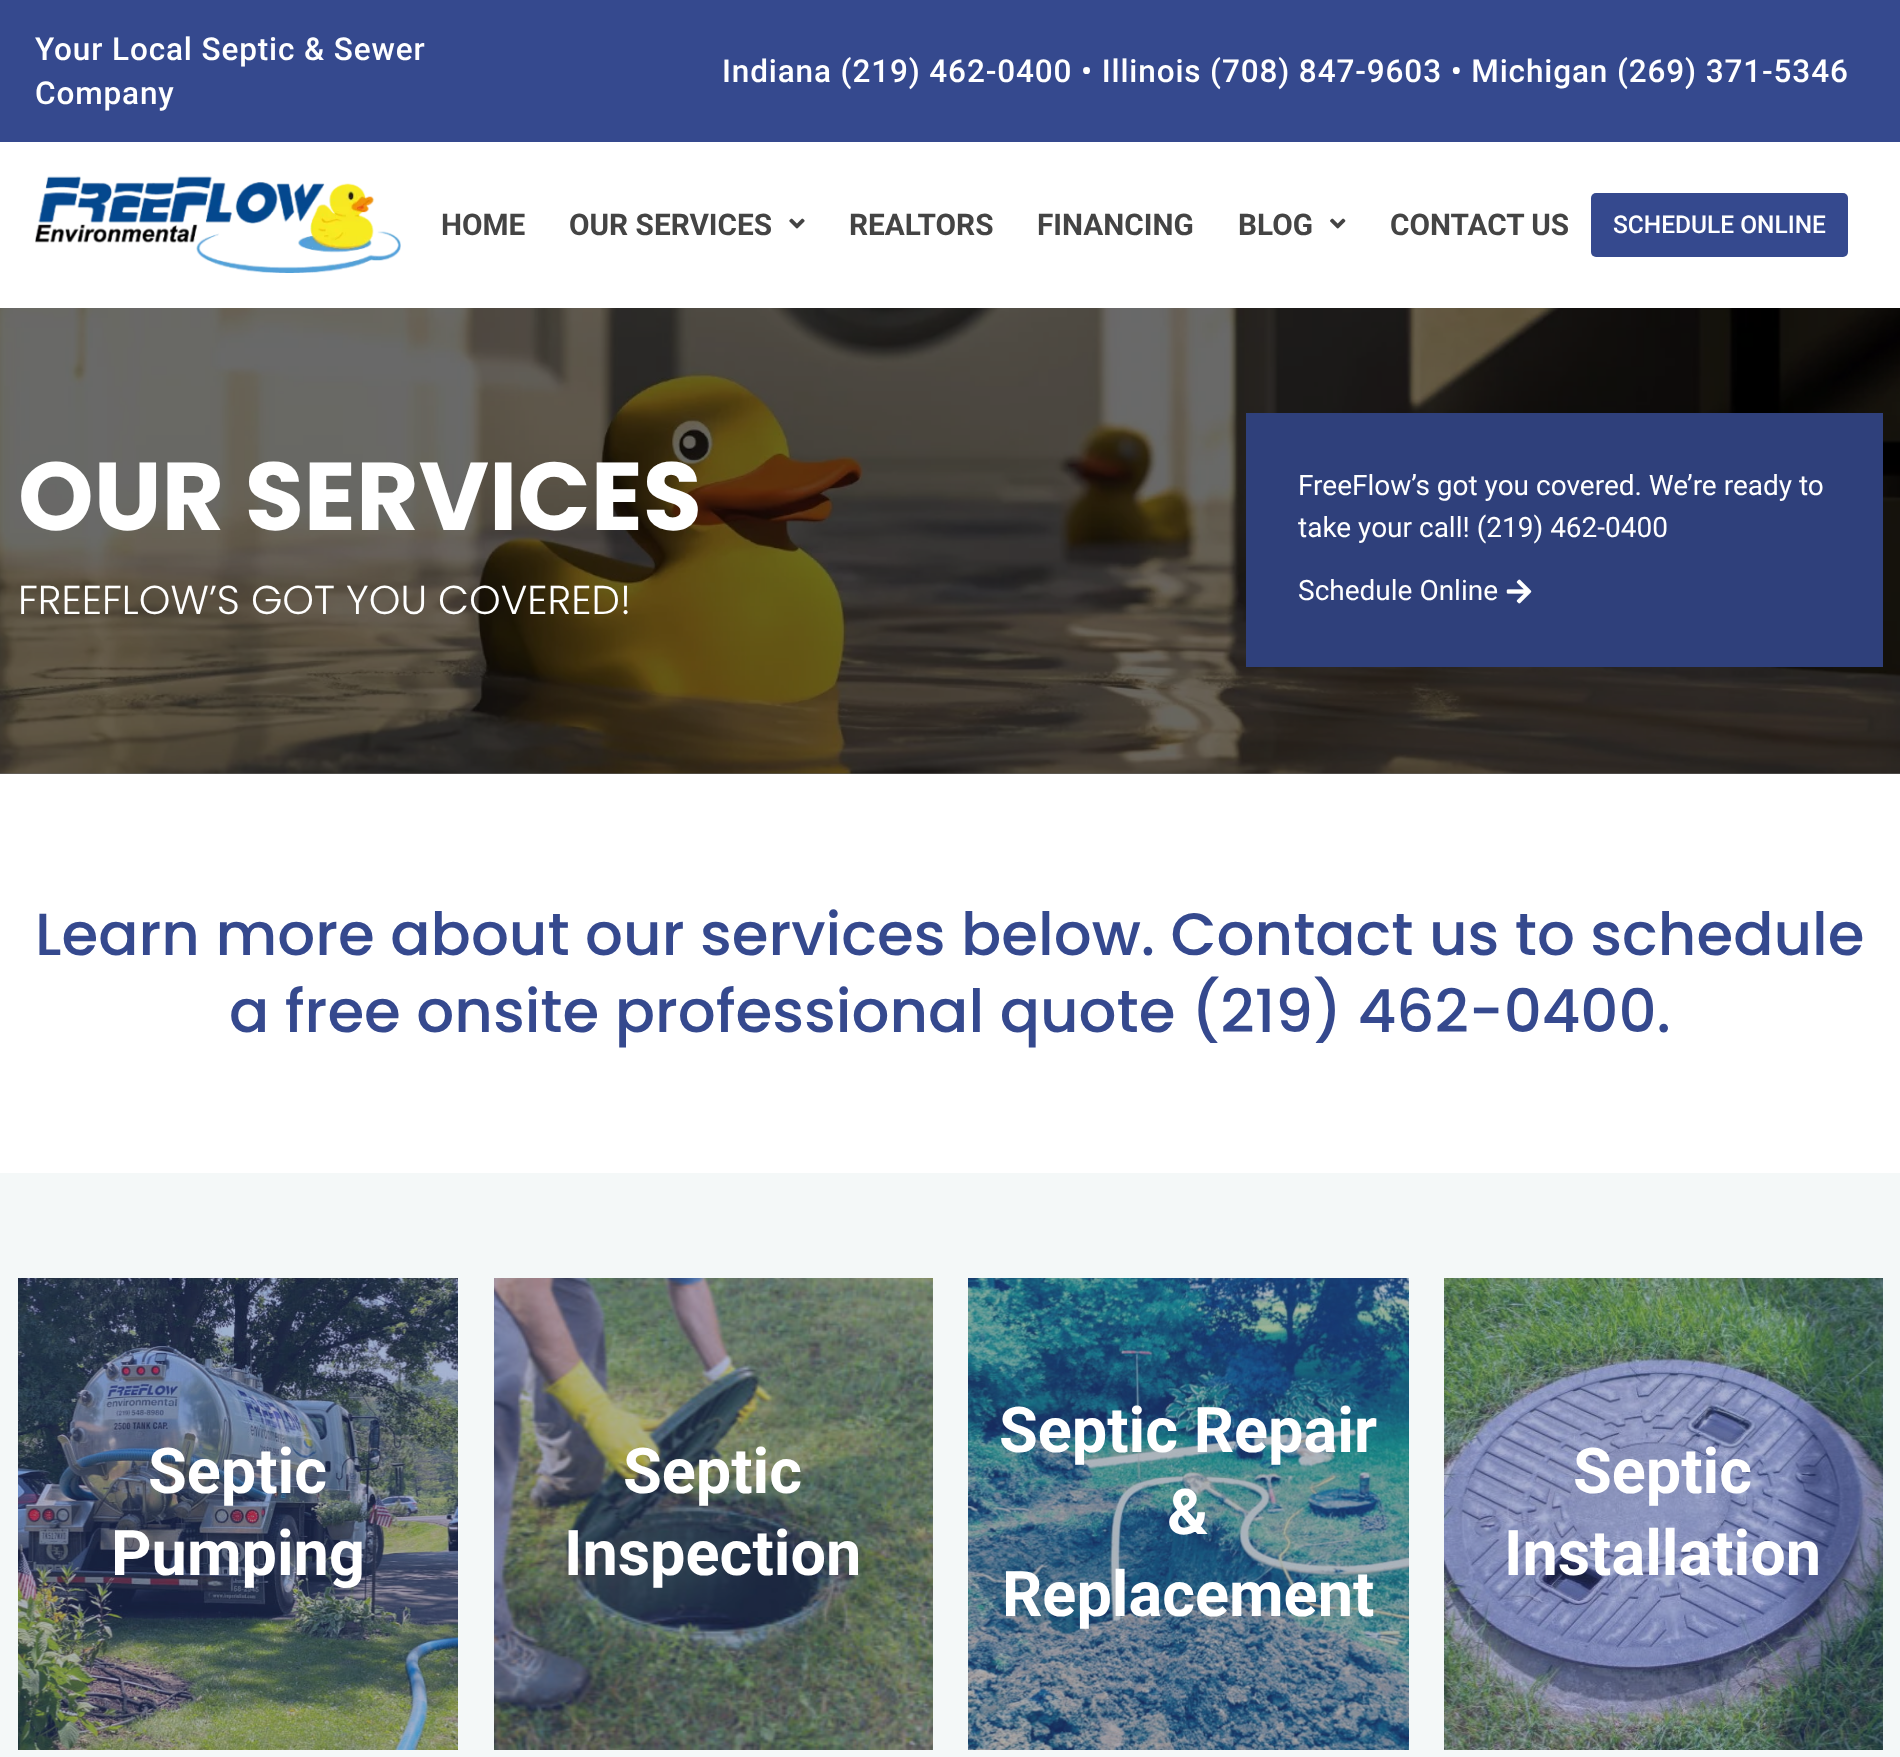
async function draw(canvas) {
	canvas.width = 1900;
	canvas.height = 1757;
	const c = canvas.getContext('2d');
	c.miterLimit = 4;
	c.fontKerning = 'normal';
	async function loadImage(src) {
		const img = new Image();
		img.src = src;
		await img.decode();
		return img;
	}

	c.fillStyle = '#fff';
	c.fillRect(0, 0, 1900, 1757);
	c.fillStyle = '#696969';
	c.fillRect(0, 773, 1900, 1);
	c.fillStyle = '#35498e';
	c.fillRect(0, 0, 1900, 142);
	c.letterSpacing = '0.88px';
	c.font = '500 31.5px Roboto';
	c.fillStyle = '#fff';
	for (const [text, x, y] of [
		['Your Local Septic & Sewer', 35, 60],
		['Company', 35, 104],
		['Indiana (219) 462-0400 • Illinois (708) 847-9603 • Michigan (269) 371-5346', 722, 82],
	]) {
		c.fillText(text, x, y);
	}
	c.drawImage(await loadImage('img1.png'), 35, 176, 366, 97);
	c.letterSpacing = '0px';
	c.font = 'bold 29.75px Roboto';
	c.fillStyle = '#444';
	c.fillText('HOME', 441, 235);
	c.fillText('OUR SERVICES', 569, 235);
	c.drawImage(await loadImage('img2.png'), 789, 218, 16, 11);
	for (const [text, x, y] of [
		['REALTORS', 849, 235],
		['FINANCING', 1037, 235],
		['BLOG', 1238, 235],
	]) {
		c.fillText(text, x, y);
	}
	c.drawImage(await loadImage('img3.png'), 1330, 218, 16, 11);
	c.fillText('CONTACT US', 1390, 235);
	c.fillStyle = '#35498e';
	c.beginPath();
	c.roundRect(1591, 193, 257, 64, 5);
	c.fill();
	c.font = '500 24.5px Roboto';
	c.fillStyle = '#fff';
	c.fillText('SCHEDULE ONLINE', 1613, 233);
	c.drawImage(await loadImage('img4.png'), 0, 308, 1900, 466);
	c.font = 'bold 96.25px Poppins';
	c.fillText('OUR SERVICES', 18, 530);
	c.font = '300 40.25px Poppins';
	c.fillText('FREEFLOW’S GOT YOU COVERED!', 18, 614);
	c.fillStyle = '#2f407b';
	c.fillRect(1246, 413, 637, 254);
	c.font = '28px Roboto';
	c.fillStyle = '#fff';
	for (const [text, x, y] of [
		['FreeFlow’s got you covered. We’re ready to', 1298, 495],
		['take your call! (219) 462-0400', 1298, 537],
		['Schedule Online', 1298, 600],
	]) {
		c.fillText(text, x, y);
	}
	c.drawImage(await loadImage('img5.png'), 1506, 579, 26, 25);
	c.font = '500 59.5px Poppins';
	c.fillStyle = '#35498e';
	c.fillText('Learn more about our services below. Contact us to schedule', 35, 955);
	c.fillText('a free onsite professional quote (219) 462-0400.', 229, 1032);
	c.fillStyle = '#f4f8f8';
	c.fillRect(0, 1173, 1900, 584);
	c.drawImage(await loadImage('img6.png'), 18, 1278, 440, 472);
	c.font = 'bold 63px Roboto';
	c.fillStyle = '#fff';
	c.fillText('Septic', 148, 1493);
	c.fillText('Pumping', 111, 1575);
	c.drawImage(await loadImage('img7.png'), 494, 1278, 439, 472);
	c.fillText('Septic', 623, 1493);
	c.fillText('Inspection', 564, 1575);
	c.drawImage(await loadImage('img8.png'), 968, 1278, 441, 472);
	for (const [text, x, y] of [
		['Septic Repair', 999, 1452],
		['&', 1167, 1534],
		['Replacement', 1002, 1616],
	]) {
		c.fillText(text, x, y);
	}
	c.drawImage(await loadImage('img9.png'), 1444, 1278, 439, 472);
	c.fillText('Septic', 1573, 1493);
	c.fillText('Installation', 1504, 1575);
}

draw(document.querySelector('canvas'));
